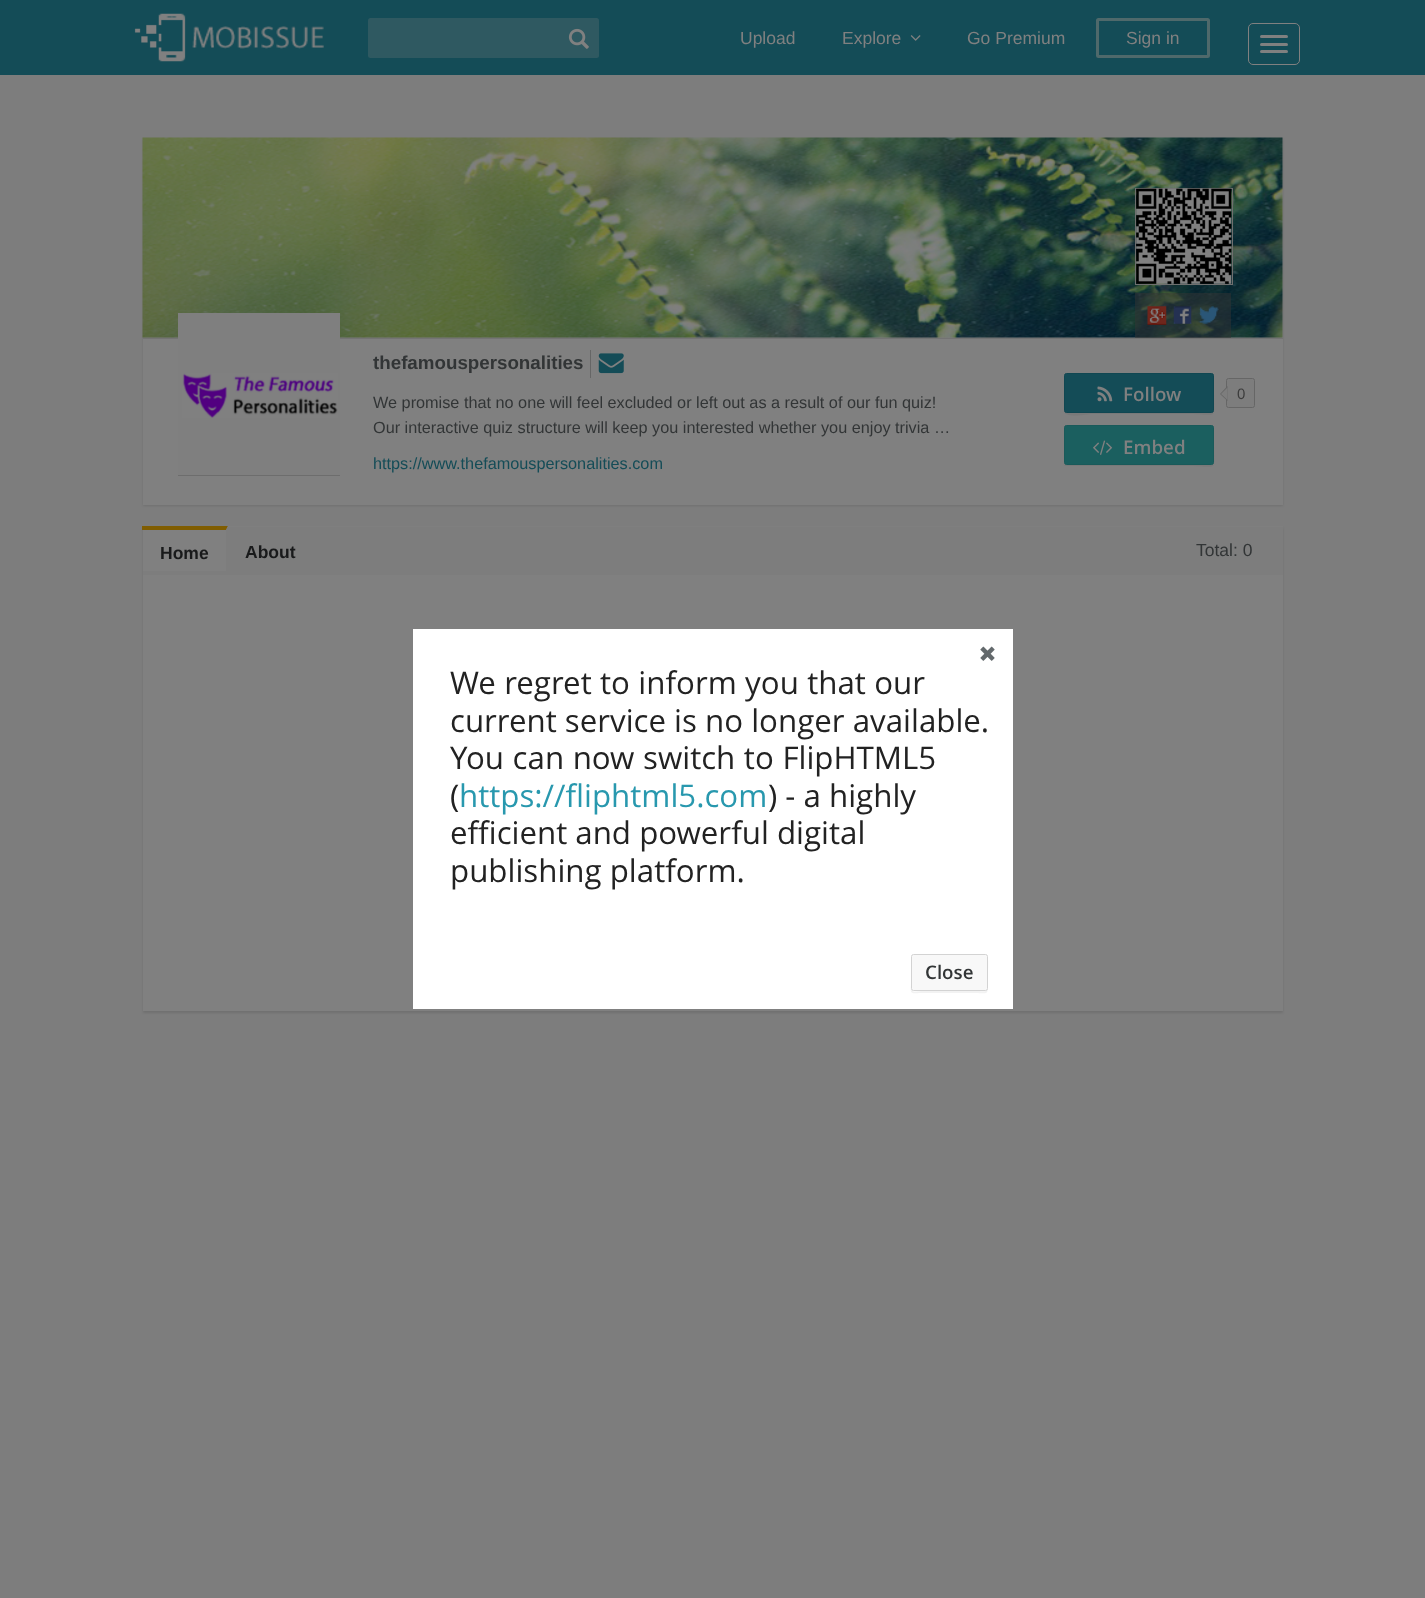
async function draw(canvas) {
	canvas.width = 1425;
	canvas.height = 1598;
	const c = canvas.getContext('2d');
	c.miterLimit = 4;
	c.fontKerning = 'normal';
	async function loadImage(src) {
		const img = new Image();
		img.src = src;
		await img.decode();
		return img;
	}

	c.fillStyle = '#7d7d7d';
	c.fillRect(0, 0, 1425, 1598);
	c.fillStyle = '#144c57';
	c.fillRect(0, 0, 1425, 75);
	c.drawImage(await loadImage('img1.png'), 134, 13, 190, 49);
	c.fillStyle = '#2f5961';
	c.beginPath();
	c.roundRect(368, 18, 231, 40, 2.5);
	c.fill();
	c.drawImage(await loadImage('img2.png'), 568, 28, 21, 21);
	c.font = '17.5px Liberation Sans';
	c.fillStyle = '#808080';
	c.fillText('Upload', 740, 44);
	c.fillText('Explore', 842, 44);
	c.drawImage(await loadImage('img3.png'), 910, 35, 11, 6);
	c.fillText('Go Premium', 967, 44);
	c.beginPath();
	c.roundRect(1097.5, 19.5, 111, 37, 1);
	c.strokeStyle = '#4f696b';
	c.lineWidth = 3;
	c.stroke();
	c.fillText('Sign in', 1126, 44);
	c.beginPath();
	c.roundRect(1248.5, 23.5, 51, 41, 4.5);
	c.strokeStyle = '#808080';
	c.lineWidth = 1;
	c.stroke();
	c.beginPath();
	c.roundRect(1260, 35, 28, 3, 1.5);
	c.fill();
	c.beginPath();
	c.roundRect(1260, 43, 28, 3, 1.5);
	c.fill();
	c.beginPath();
	c.roundRect(1260, 50, 28, 3, 1.5);
	c.fill();
	c.fillStyle = '#0000001a';
	c.filter = 'blur(1px)';
	c.beginPath();
	c.rect(143, 139, 1140, 367);
	c.fill();
	c.filter = 'none';
	c.fillStyle = '#737373';
	c.beginPath();
	c.moveTo(143, 338);
	c.lineTo(143, 339);
	c.lineTo(1283, 339);
	c.lineTo(1283, 139);
	c.lineTo(1282, 139);
	c.lineTo(1282, 338);
	c.closePath();
	c.fill();
	c.fillStyle = '#7b7b7b';
	c.fillRect(143, 139, 1140, 199);
	c.drawImage(await loadImage('img5.png'), 142, 137, 1141, 201);
	c.strokeStyle = '#6f6f6f';
	c.strokeRect(1135.5, 188.5, 97, 96);
	c.drawImage(await loadImage('img4.png'), 1136, 188, 96, 96);
	c.fillStyle = '#808080';
	c.fillRect(143, 339, 1140, 166);
	c.fillStyle = '#33333380';
	c.fillRect(1135, 293, 96, 45);
	c.drawImage(await loadImage('img6.png'), 1147, 306, 20, 19);
	c.drawImage(await loadImage('img7.png'), 1173, 306, 19, 18);
	c.drawImage(await loadImage('img8.png'), 1198, 306, 21, 18);
	c.fillStyle = '#00000026';
	c.filter = 'blur(0.5px)';
	c.beginPath();
	c.rect(178, 314, 162, 162);
	c.fill();
	c.filter = 'none';
	c.fillStyle = '#7f7f7f';
	c.fillRect(178, 313, 162, 162);
	c.drawImage(await loadImage('img9.png'), 182, 373, 156, 45);
	c.font = 'bold 18.75px Liberation Sans';
	c.fillStyle = '#323536';
	c.fillText('thefamouspersonalities', 373, 369);
	c.fillStyle = '#666';
	c.fillRect(590, 350, 1, 28);
	c.drawImage(await loadImage('img10.png'), 598, 353, 26, 21);
	c.font = '16.25px Liberation Sans';
	c.fillStyle = '#323536';
	c.fillText('We promise that no one will feel excluded or left out as a result of our fun quiz!', 373, 408);
	c.fillText('Our interactive quiz structure will keep you interested whether you enjoy trivia …', 373, 433);
	c.fillStyle = '#797979';
	c.beginPath();
	c.moveTo(1064, 411);
	c.bezierCurveTo(1064, 419, 1090, 414, 1091, 414);
	c.lineTo(1187, 414);
	c.bezierCurveTo(1219, 414, 1214, 421, 1214, 394);
	c.lineTo(1214, 375);
	c.lineTo(1214, 410);
	c.bezierCurveTo(1214, 411, 1213, 412, 1211, 412);
	c.lineTo(1066, 412);
	c.bezierCurveTo(1065, 412, 1064, 412, 1064, 411);
	c.closePath();
	c.fill();
	c.fillStyle = '#144c57';
	c.beginPath();
	c.roundRect(1064.5, 373.5, 149, 39, 2);
	c.fill();
	c.strokeStyle = '#114752';
	c.stroke();
	c.drawImage(await loadImage('img11.png'), 1097, 386, 16, 16);
	c.font = '600 18.75px Open Sans';
	c.fillStyle = '#808080';
	c.fillText('Follow', 1123, 401);
	c.fillStyle = '#7d7d7d';
	c.beginPath();
	c.roundRect(1226.5, 378.5, 28, 29, 2);
	c.fill();
	c.strokeStyle = '#666';
	c.stroke();
	c.fillStyle = '#666';
	c.beginPath();
	c.moveTo(1227.5, 386);
	c.lineTo(1227.5, 401);
	c.lineTo(1220, 394);
	c.closePath();
	c.fill();
	c.fillStyle = '#7d7d7d';
	c.beginPath();
	c.moveTo(1227.5, 387.5);
	c.lineTo(1227.5, 400);
	c.lineTo(1221, 394);
	c.closePath();
	c.fill();
	c.font = '15px Liberation Sans';
	c.fillStyle = '#3c3c3c';
	c.fillText('0', 1237, 399);
	c.fillStyle = '#797979';
	c.beginPath();
	c.moveTo(1064, 464);
	c.bezierCurveTo(1064, 465, 1065, 466, 1066, 466);
	c.lineTo(1187, 466);
	c.bezierCurveTo(1219, 466, 1214, 473, 1214, 446);
	c.lineTo(1214, 427);
	c.lineTo(1214, 462);
	c.bezierCurveTo(1214, 464, 1213, 465, 1211, 465);
	c.lineTo(1066, 465);
	c.bezierCurveTo(1065, 465, 1064, 464, 1064, 464);
	c.closePath();
	c.fill();
	c.fillStyle = '#1b5f5f';
	c.beginPath();
	c.roundRect(1064.5, 425.5, 149, 39, 2);
	c.fill();
	c.strokeStyle = '#1a5a5a';
	c.stroke();
	c.drawImage(await loadImage('img12.png'), 1093, 440, 20, 15);
	c.font = '600 18.75px Open Sans';
	c.fillStyle = '#808080';
	c.fillText('Embed', 1123, 454);
	c.font = '16.25px Liberation Sans';
	c.fillStyle = '#144c57';
	c.fillText('https://www.thefamouspersonalities.com', 373, 469);
	c.fillStyle = '#0000001a';
	c.filter = 'blur(1px)';
	c.beginPath();
	c.rect(143, 528, 1140, 485);
	c.fill();
	c.filter = 'none';
	c.fillStyle = '#808080';
	c.fillRect(143, 575, 1140, 436);
	c.fillStyle = '#7d7d7d';
	c.beginPath();
	c.moveTo(143, 574);
	c.lineTo(143, 575);
	c.lineTo(1283, 575);
	c.lineTo(1283, 528);
	c.lineTo(1282, 528);
	c.lineTo(1282, 574);
	c.closePath();
	c.fill();
	for (const [x, y, w, h, color] of [
		[143, 527, 1140, 47, '#7d7d7d'],
		[228, 526, 1055, 1, '#7f7f7f'],
		[143, 526, 85, 45, '#808080'],
	]) {
		c.fillStyle = color;
		c.fillRect(x, y, w, h);
	}
	c.fillStyle = '#805d01';
	c.beginPath();
	c.moveTo(142, 526);
	c.lineTo(228, 526);
	c.lineTo(226, 530);
	c.lineTo(142, 530);
	c.closePath();
	c.fill();
	c.fillStyle = '#7d7d7d';
	c.beginPath();
	c.moveTo(228, 526);
	c.lineTo(228, 571);
	c.lineTo(226, 571);
	c.lineTo(226, 530);
	c.closePath();
	c.fill();
	c.font = 'bold 17.5px Liberation Sans';
	c.fillStyle = '#191a1b';
	c.fillText('Home', 160, 559);
	c.fillText('About', 245, 558);
	c.font = '17.5px Liberation Sans';
	c.fillStyle = '#323536';
	c.fillText('Total: 0', 1196, 556);
	c.fillStyle = '#fff';
	c.fillRect(413, 629, 600, 380);
	c.drawImage(await loadImage('img13.png'), 980, 646, 15, 15);
	c.wordSpacing = '0.25px';
	c.font = '31.25px Open Sans';
	c.fillStyle = '#222';
	c.fillText('We regret to inform you that our', 450, 694);
	c.wordSpacing = '0px';
	c.fillText('current service is no longer available.', 450, 732);
	c.wordSpacing = '0.5px';
	c.fillText('You can now switch to FlipHTML5', 450, 769);
	c.wordSpacing = '0px';
	c.fillText('(', 450, 807);
	c.fillStyle = '#2898ae';
	c.fillText('https://fliphtml5.com', 459, 807);
	c.fillStyle = '#222';
	for (const [text, x, y] of [
		[') - a highly', 768, 807],
		['efficient and powerful digital', 450, 844],
		['publishing platform.', 450, 882],
	]) {
		c.fillText(text, x, y);
	}
	c.fillStyle = '#f2f2f2';
	c.beginPath();
	c.moveTo(911, 956);
	c.lineTo(911, 980);
	c.bezierCurveTo(911, 996, 908, 993, 926, 993);
	c.lineTo(974, 993);
	c.bezierCurveTo(987, 993, 988, 996, 988, 985);
	c.lineTo(988, 974);
	c.bezierCurveTo(988, 971, 989, 958, 987, 956);
	c.lineTo(988, 978);
	c.bezierCurveTo(988, 994, 990, 991, 973, 991);
	c.lineTo(926, 991);
	c.bezierCurveTo(912, 991, 911, 995, 911, 983);
	c.closePath();
	c.fill();
	c.fillStyle = '#f8f8f8';
	c.beginPath();
	c.roundRect(911.5, 954.5, 76, 36, 2);
	c.fill();
	c.strokeStyle = '#d3d3d3';
	c.stroke();
	c.font = '600 18.75px Open Sans';
	c.fillStyle = '#323536';
	c.fillText('Close', 925, 979);
}

draw(document.querySelector('canvas'));
